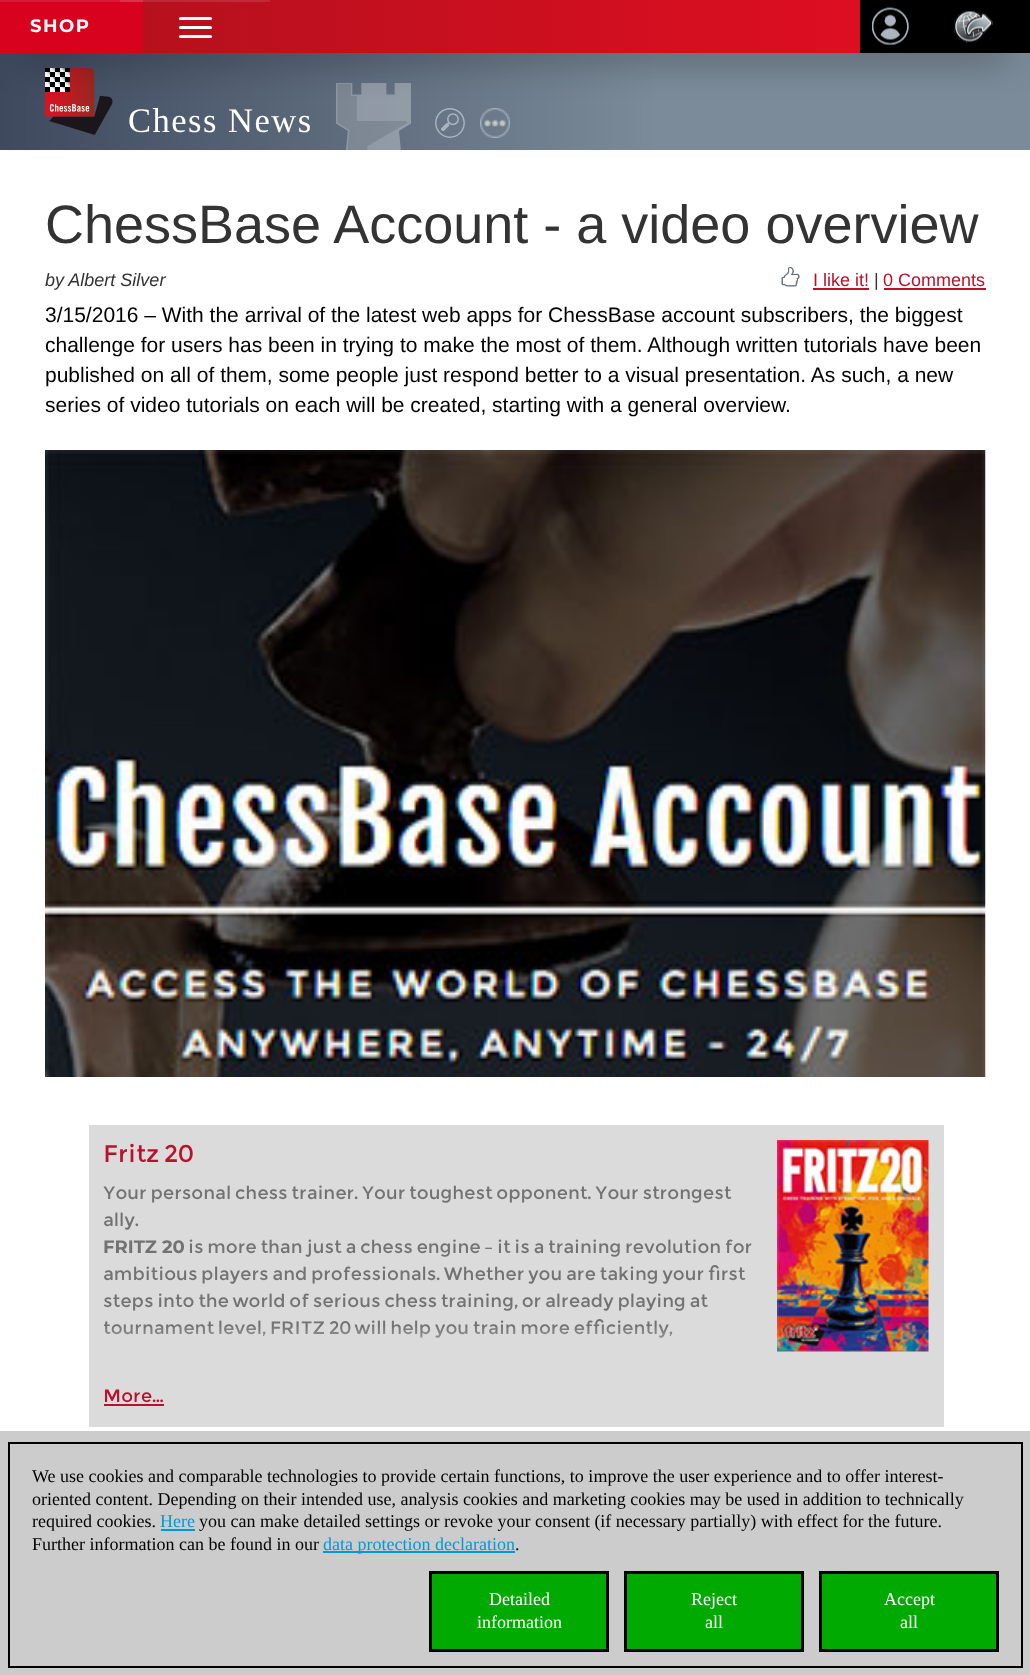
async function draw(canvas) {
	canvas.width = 1030;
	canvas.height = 1675;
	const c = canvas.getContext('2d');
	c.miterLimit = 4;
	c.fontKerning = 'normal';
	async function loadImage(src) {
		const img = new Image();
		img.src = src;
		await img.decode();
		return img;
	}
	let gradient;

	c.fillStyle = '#fff';
	c.fillRect(0, 0, 1030, 1675);
	gradient = c.createLinearGradient(0, 101, 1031, 101);
	gradient.addColorStop(0, '#3e495e');
	gradient.addColorStop(0.64, '#7b8b99');
	c.fillStyle = gradient;
	c.fillRect(0, 53, 1030, 97);
	c.drawImage(await loadImage('img3.png'), 45, 68, 68, 67);
	c.drawImage(await loadImage('img4.png'), 435, 108, 30, 30);
	c.drawImage(await loadImage('img5.png'), 480, 108, 30, 30);
	c.drawImage(await loadImage('img6.png'), 336, 83, 75, 67);
	c.fillStyle = '#000000e6';
	c.filter = 'blur(19px)';
	c.beginPath();
	c.rect(23, 45, 985, 8);
	c.fill();
	c.filter = 'none';
	gradient = c.createLinearGradient(0, 26, 860, 26);
	gradient.addColorStop(0, '#ae111d');
	gradient.addColorStop(1, '#de0e21');
	c.fillStyle = gradient;
	c.fillRect(143, 0, 717, 53);
	gradient = c.createLinearGradient(0, 26, 860, 26);
	gradient.addColorStop(0, '#b62934');
	gradient.addColorStop(1, '#e12637');
	c.fillStyle = gradient;
	c.fillRect(143, 0, 127, 2);
	for (const [x, y, w, h, color] of [
		[0, 2, 143, 51, '#d8011e'],
		[0, 0, 120, 2, '#dc1a35'],
		[120, 0, 23, 2, '#e03149'],
	]) {
		c.fillStyle = color;
		c.fillRect(x, y, w, h);
	}
	c.letterSpacing = '1.5px';
	c.font = 'bold 18px Montserrat';
	c.fillStyle = '#fff';
	c.fillText('SHOP', 30, 32);
	c.beginPath();
	c.roundRect(179, 17, 33, 3, 1.5);
	c.fill();
	c.beginPath();
	c.roundRect(179, 26, 33, 3, 1.5);
	c.fill();
	c.beginPath();
	c.roundRect(179, 35, 33, 3, 1.5);
	c.fill();
	c.fillStyle = '#000';
	c.fillRect(860, 0, 170, 53);
	c.drawImage(await loadImage('img1.png'), 872, 7, 37, 39);
	c.drawImage(await loadImage('img2.png'), 954, 10, 39, 33);
	c.font = '34.5px Liberation Serif';
	c.fillStyle = '#fff';
	c.fillText('Chess News', 128, 132);
	c.letterSpacing = '0px';
	c.font = '54px Liberation Sans';
	c.fillStyle = '#333';
	c.fillText('ChessBase Account - a video overview', 45, 243);
	c.font = 'italic 18px Liberation Sans';
	c.fillText('by Albert Silver', 45, 286);
	c.drawImage(await loadImage('img7.png'), 781, 267, 19, 20);
	c.font = '18px Liberation Sans';
	c.fillStyle = '#bb102b';
	c.fillText('I like it!', 813, 286);
	c.fillRect(813, 288, 56, 2);
	c.fillStyle = '#333';
	c.fillText('|', 874, 286);
	c.fillStyle = '#bb102b';
	c.fillText('0 Comments', 883, 286);
	c.fillRect(884, 288, 102, 2);
	c.font = '21px Liberation Sans';
	c.fillStyle = '#000';
	for (const [text, x, y] of [
		['3/15/2016 – With the arrival of the latest web apps for ChessBase account subscribers, the biggest', 45, 322],
		['challenge for users has been in trying to make the most of them. Although written tutorials have been', 45, 352],
		['published on all of them, some people just respond better to a visual presentation. As such, a new', 45, 382],
		['series of video tutorials on each will be created, starting with a general overview.', 45, 412],
	]) {
		c.fillText(text, x, y);
	}
	c.drawImage(await loadImage('img8.png'), 45, 450, 941, 627);
	c.fillStyle = '#dbdbdb';
	c.fillRect(89, 1125, 855, 302);
	c.font = '24px Montserrat';
	c.fillStyle = '#bb102b';
	c.fillText('Fritz 20', 103, 1162);
	c.drawImage(await loadImage('img9.png'), 777, 1140, 152, 212);
	c.font = '18px Montserrat';
	c.fillStyle = '#727272';
	c.fillText('Your personal chess trainer. Your toughest opponent. Your strongest', 103, 1199);
	c.fillText('ally.', 103, 1226);
	c.font = 'bold 18px Montserrat';
	c.fillText('FRITZ 20', 103, 1253);
	gradient = c.createLinearGradient(433, 1181, 433, 1373);
	gradient.addColorStop(0, '#dbdbdb00');
	gradient.addColorStop(0.75, '#dbdbdb00');
	gradient.addColorStop(0.88, '#dbdbdb4d');
	gradient.addColorStop(1, '#dbdbdbf2');
	c.fillStyle = gradient;
	c.fillRect(105, 1327, 567, 11);
	c.font = '18px Montserrat';
	c.fillStyle = '#727272';
	for (const [text, x, y] of [
		['is more than just a chess engine – it is a training revolution for', 188, 1253],
		['ambitious players and professionals. Whether you are taking your first', 103, 1280],
		['steps into the world of serious chess training, or already playing at', 103, 1307],
		['tournament level, FRITZ 20 will help you train more efficiently,', 103, 1334],
	]) {
		c.fillText(text, x, y);
	}
	gradient = c.createLinearGradient(433, 1181, 433, 1373);
	gradient.addColorStop(0, '#dbdbdb00');
	gradient.addColorStop(0.75, '#dbdbdb00');
	gradient.addColorStop(0.88, '#dbdbdb4d');
	gradient.addColorStop(1, '#dbdbdbf2');
	c.fillStyle = gradient;
	c.fillRect(105, 1327, 567, 11);
	c.fillRect(105, 1327, 567, 11);
	c.fillStyle = '#bb102b';
	c.fillText('More...', 103, 1402);
	c.fillRect(104, 1404, 60, 2);
	c.fillStyle = '#ccc';
	c.fillRect(0, 1431, 1030, 244);
	c.strokeStyle = '#000';
	c.lineWidth = 2;
	c.strokeRect(9, 1443, 1013, 224);
	c.font = '18px Liberation Serif';
	c.fillStyle = '#000';
	for (const [text, x, y] of [
		['We use cookies and comparable technologies to provide certain functions, to improve the user experience and to offer interest-', 32, 1482],
		['oriented content. Depending on their intended use, analysis cookies and marketing cookies may be used in addition to technically', 32, 1505],
		['required cookies.', 32, 1527],
	]) {
		c.fillText(text, x, y);
	}
	c.fillStyle = '#0099da';
	c.fillText('Here', 160, 1527);
	c.fillRect(161, 1529, 34, 2);
	c.fillStyle = '#000';
	c.fillText('you can make detailed settings or revoke your consent (if necessary partially) with effect for the future.', 199, 1527);
	c.fillText('Further information can be found in our', 32, 1550);
	c.fillStyle = '#0099da';
	c.fillRect(323, 1551, 192, 2);
	c.fillText('data protection declaration', 323, 1550);
	c.fillStyle = '#000';
	c.fillText('.', 515, 1550);
	c.fillStyle = '#0a0';
	c.beginPath();
	c.rect(430.5, 1572.5, 177, 78);
	c.fill();
	c.lineWidth = 3;
	c.stroke();
	c.fillStyle = '#fff';
	c.fillText('Detailed', 489, 1605);
	c.fillText('information', 477, 1628);
	c.fillStyle = '#0a0';
	c.beginPath();
	c.rect(625.5, 1572.5, 177, 78);
	c.fill();
	c.stroke();
	c.fillStyle = '#fff';
	c.fillText('Reject', 691, 1605);
	c.fillText('all', 705, 1628);
	c.fillStyle = '#0a0';
	c.beginPath();
	c.rect(820.5, 1572.5, 177, 78);
	c.fill();
	c.stroke();
	c.fillStyle = '#fff';
	c.fillText('Accept', 884, 1605);
	c.fillText('all', 900, 1628);
}

draw(document.querySelector('canvas'));
